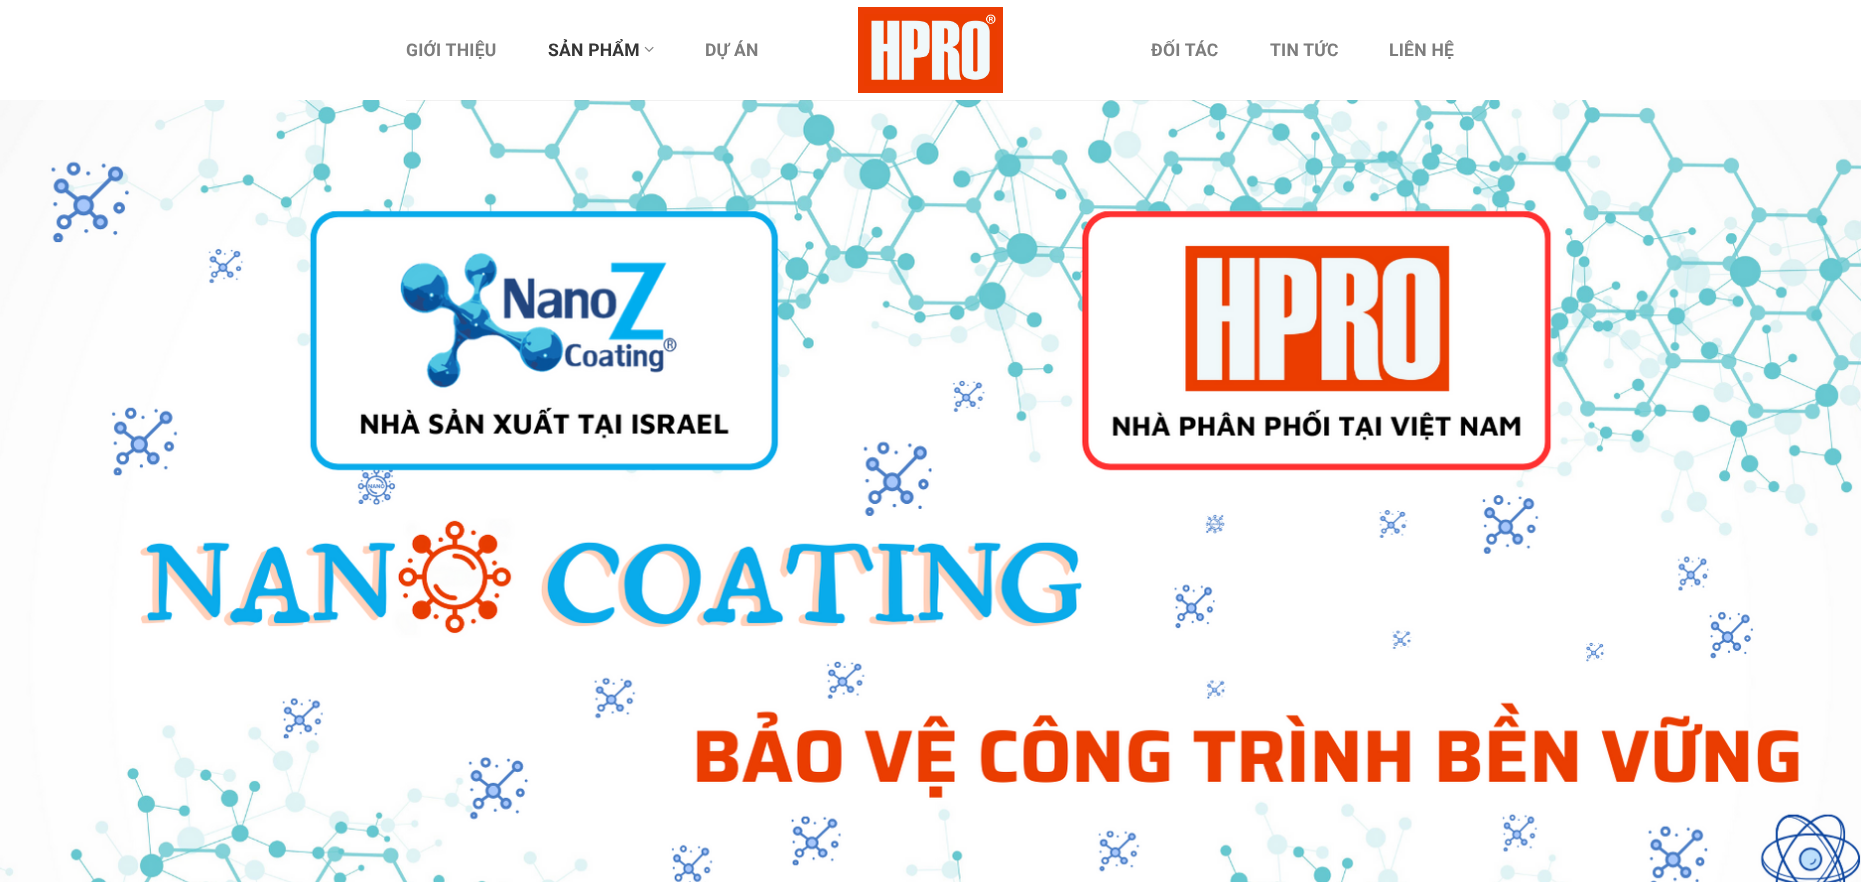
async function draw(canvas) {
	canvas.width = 1861;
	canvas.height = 882;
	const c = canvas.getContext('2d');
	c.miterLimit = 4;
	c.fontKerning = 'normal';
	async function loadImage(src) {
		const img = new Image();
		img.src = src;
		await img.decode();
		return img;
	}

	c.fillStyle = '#fff';
	c.fillRect(0, 0, 1861, 882);
	c.letterSpacing = '0.25px';
	c.font = 'bold 17.5px Roboto';
	c.fillStyle = '#7d7d7d';
	c.fillText('GIỚI THIỆU', 406, 56);
	c.fillStyle = '#353535';
	c.fillText('SẢN PHẨM', 548, 56);
	c.drawImage(await loadImage('img1.png'), 644, 46, 10, 6);
	c.fillStyle = '#7d7d7d';
	c.fillText('DỰ ÁN', 705, 56);
	c.drawImage(await loadImage('img2.png'), 858, 7, 145, 86);
	for (const [text, x, y] of [
		['ĐỐI TÁC', 1151, 56],
		['TIN TỨC', 1270, 56],
		['LIÊN HỆ', 1389, 56],
	]) {
		c.fillText(text, x, y);
	}
	c.drawImage(await loadImage('img3.png'), 0, 100, 1861, 782);
	c.fillStyle = '#7777771a';
	c.fillRect(406, 100, 1050, 1);
	c.beginPath();
	c.arc(964, 883, 4.5, 0, 2 * Math.PI);
	c.strokeStyle = '#ffffff66';
	c.lineWidth = 3;
	c.stroke();
}

draw(document.querySelector('canvas'));
